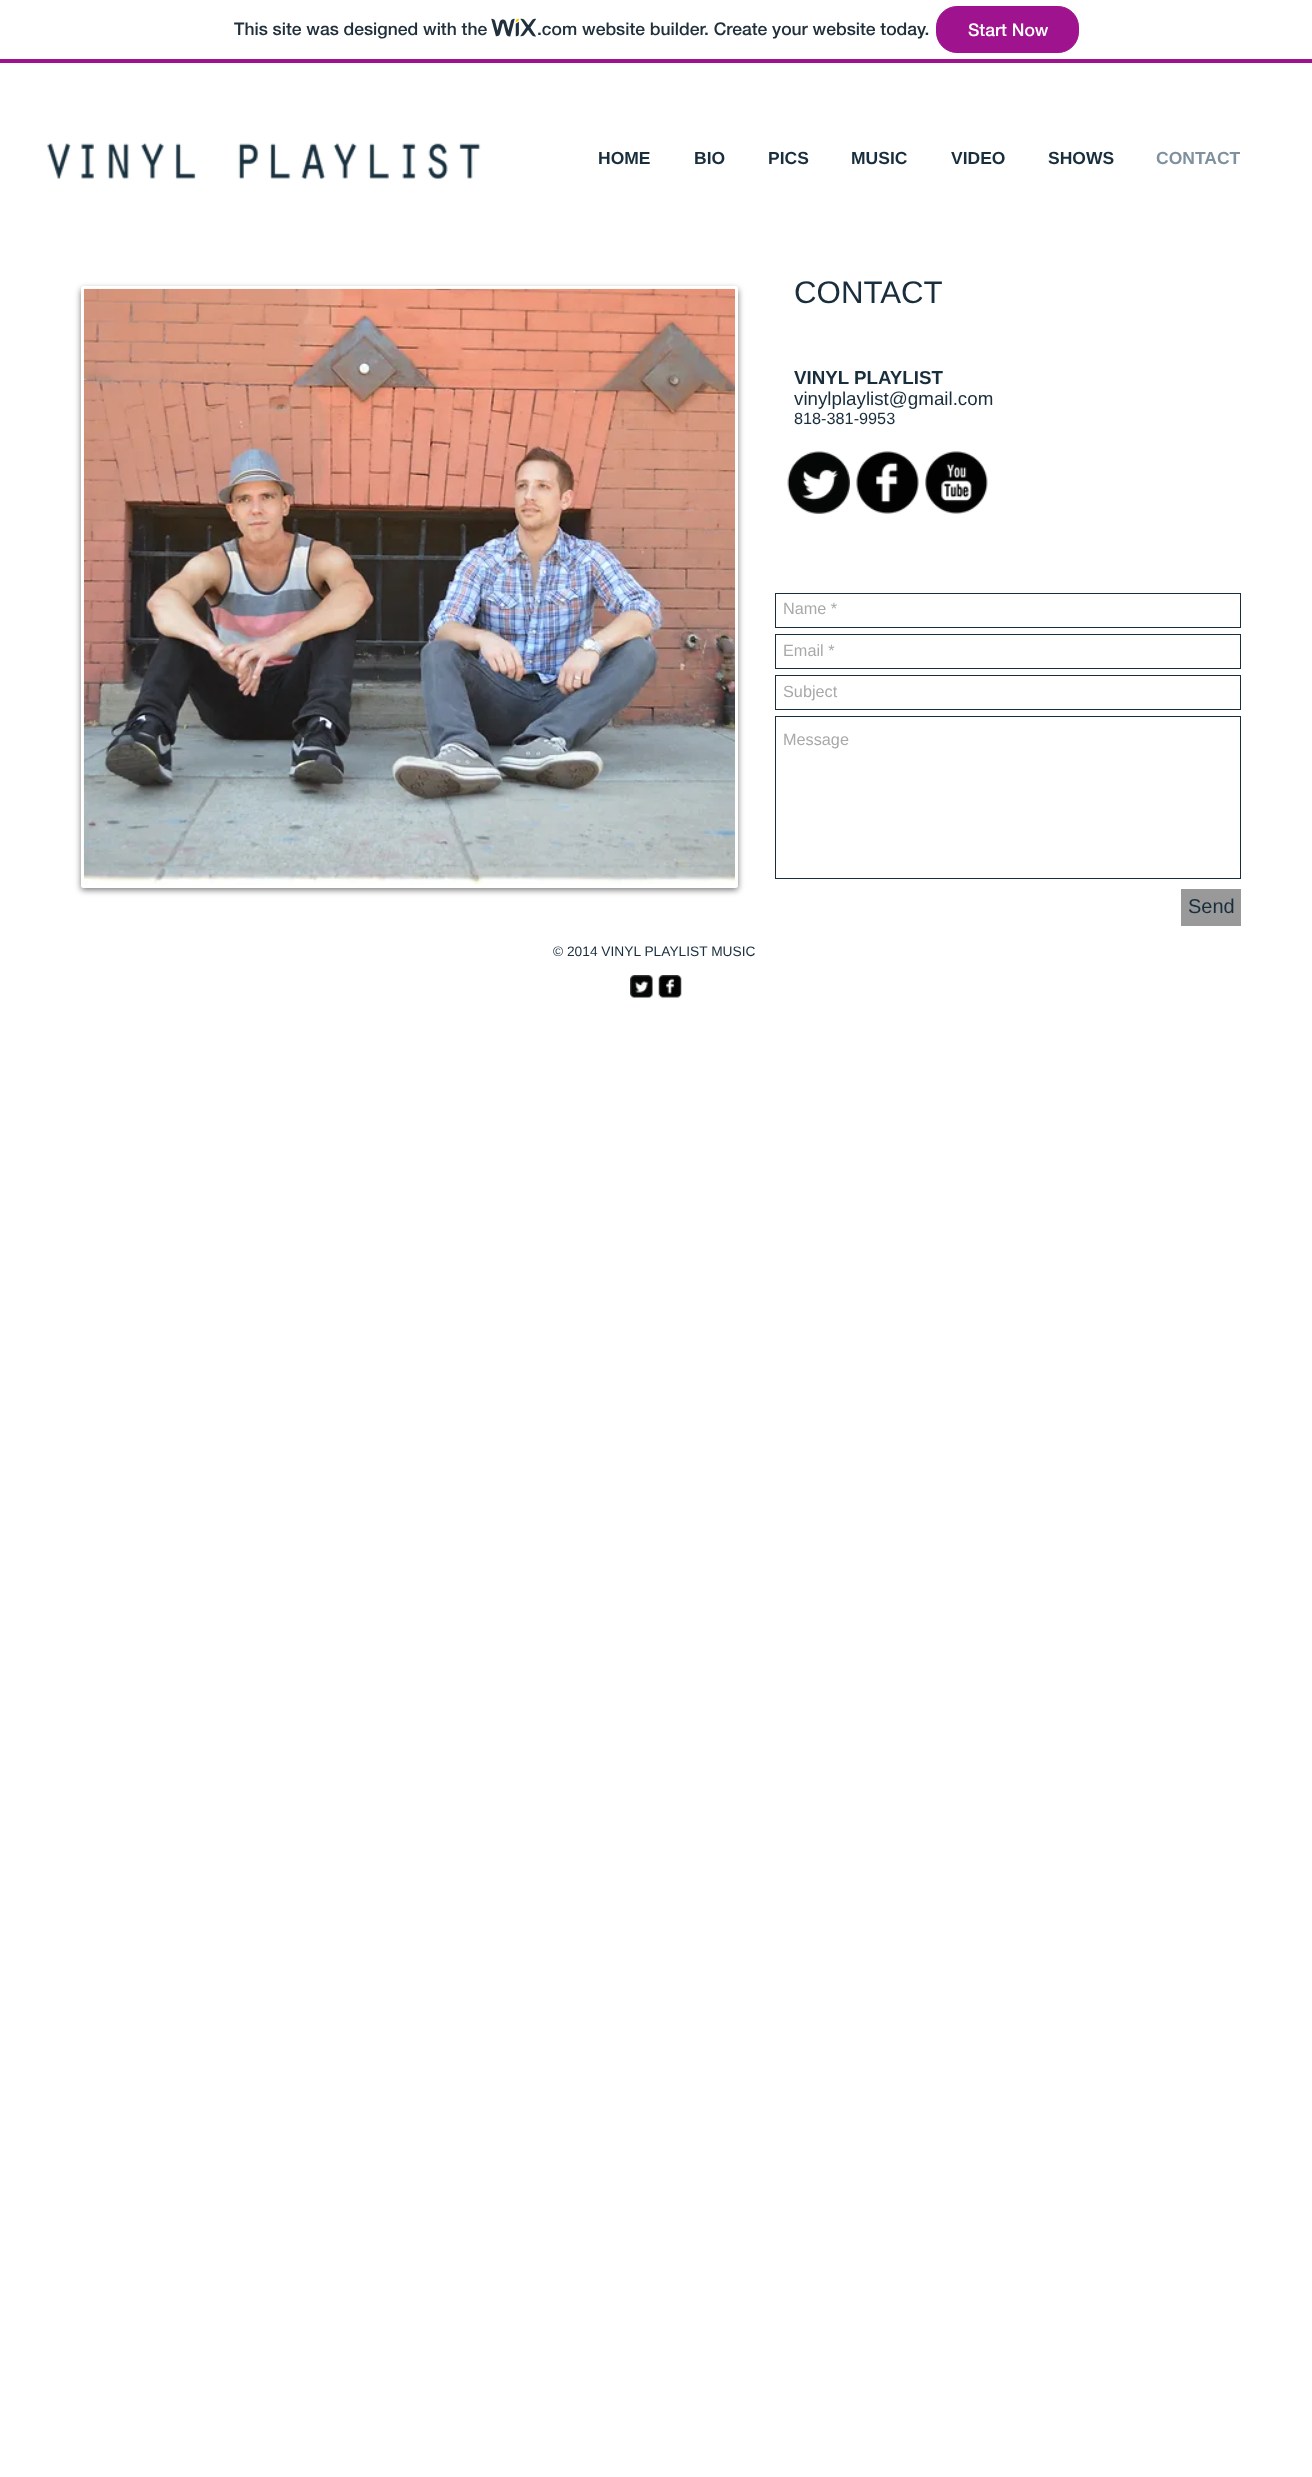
async function draw(canvas) {
	canvas.width = 1312;
	canvas.height = 2477;
	const c = canvas.getContext('2d');
	c.miterLimit = 4;
	c.fontKerning = 'normal';
	async function loadImage(src) {
		const img = new Image();
		img.src = src;
		await img.decode();
		return img;
	}

	c.fillStyle = '#fff';
	c.fillRect(0, 0, 1312, 2477);
	c.fillStyle = '#a0138e';
	c.fillRect(0, 59, 1312, 4);
	c.font = '500 17.5px "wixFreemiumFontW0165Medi"';
	c.fillStyle = '#20303c';
	c.fillText('This site was designed with the', 234, 35);
	c.drawImage(await loadImage('img1.png'), 491, 18, 45, 19);
	c.fillText('.com website builder. Create your website today.', 537, 35);
	c.fillStyle = '#a0138e';
	c.beginPath();
	c.roundRect(936.5, 6.5, 142, 46, 20.5);
	c.fill();
	c.strokeStyle = '#a0138e';
	c.stroke();
	c.fillStyle = '#fff';
	c.fillText('Start Now', 968, 36);
	c.drawImage(await loadImage('img2.png'), 47, 143, 434, 36);
	c.font = 'bold 17.5px Liberation Sans';
	c.fillStyle = '#192e3d';
	for (const [text, x, y] of [
		['HOME', 598, 164],
		['BIO', 694, 164],
		['PICS', 768, 164],
		['MUSIC', 851, 164],
		['VIDEO', 951, 164],
		['SHOWS', 1048, 164],
	]) {
		c.fillText(text, x, y);
	}
	c.fillStyle = '#7f919e';
	c.fillText('CONTACT', 1156, 164);
	c.fillStyle = '#00000087';
	c.filter = 'blur(3px)';
	c.beginPath();
	c.roundRect(81, 289, 657, 601, 2.5);
	c.fill();
	c.filter = 'none';
	c.beginPath();
	c.roundRect(82.5, 287.5, 654, 599, 1);
	c.strokeStyle = '#fff';
	c.lineWidth = 3;
	c.stroke();
	c.drawImage(await loadImage('img3.png'), 83, 288, 652, 597);
	c.font = '31.25px Liberation Sans';
	c.fillStyle = '#192e3d';
	c.fillText('CONTACT', 794, 303);
	c.font = 'bold 18.75px Liberation Sans';
	c.fillText('VINYL PLAYLIST', 794, 384);
	c.font = '18.75px Liberation Sans';
	c.fillText('vinylplaylist@gmail.com', 794, 405);
	c.font = '16.25px Liberation Sans';
	c.fillText('818-381-9953', 794, 424);
	c.drawImage(await loadImage('img4.png'), 787, 451, 63, 63);
	c.drawImage(await loadImage('img5.png'), 856, 451, 63, 63);
	c.drawImage(await loadImage('img6.png'), 925, 451, 63, 63);
	c.strokeStyle = '#192e3d';
	c.lineWidth = 1;
	c.strokeRect(775.5, 593.5, 465, 34);
	c.fillStyle = '#a9a9a9';
	c.fillText('Name *', 783, 614);
	c.strokeRect(775.5, 634.5, 465, 34);
	c.fillText('Email *', 783, 656);
	c.strokeRect(775.5, 675.5, 465, 34);
	c.fillText('Subject', 783, 697);
	c.strokeRect(775.5, 716.5, 465, 162);
	c.fillText('Message', 783, 745);
	c.fillStyle = '#999';
	c.fillRect(1181, 889, 60, 37);
	c.font = '20px Liberation Sans';
	c.fillStyle = '#192e3d';
	c.fillText('Send', 1188, 913);
	c.font = '13.75px Liberation Sans';
	c.fillText('© 2014 VINYL PLAYLIST MUSIC', 553, 956);
	c.drawImage(await loadImage('img7.png'), 630, 975, 23, 23);
	c.drawImage(await loadImage('img8.png'), 658, 975, 24, 23);
}

draw(document.querySelector('canvas'));
